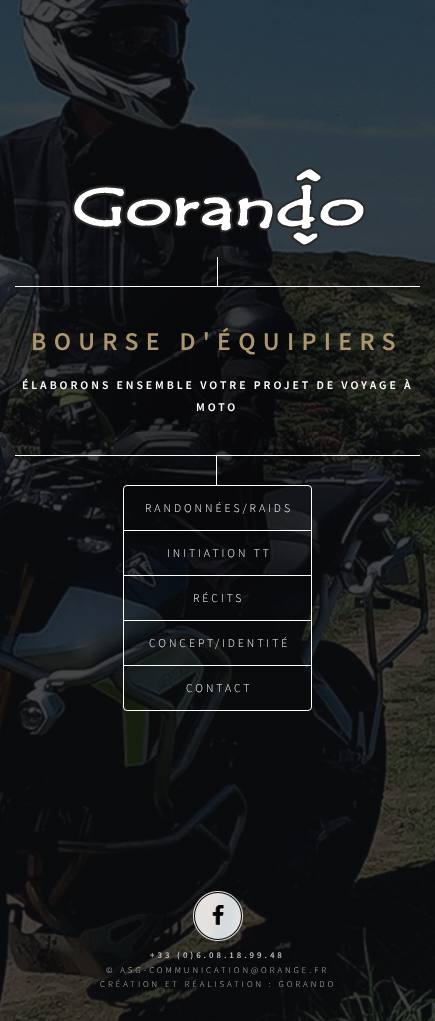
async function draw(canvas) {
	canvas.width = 435;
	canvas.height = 1021;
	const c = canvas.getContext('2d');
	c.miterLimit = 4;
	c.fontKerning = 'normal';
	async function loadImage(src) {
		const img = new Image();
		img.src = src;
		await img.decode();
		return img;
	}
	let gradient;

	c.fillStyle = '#fff';
	c.fillRect(0, 0, 435, 1021);
	c.drawImage(await loadImage('img1.png'), 0, 0, 435, 1021);
	c.drawImage(await loadImage('img2.png'), 0, 0, 435, 1021);
	gradient = c.createRadialGradient(218, 300.4, 0, 218, 300.4, 286);
	gradient.addColorStop(0.25, '#00000040');
	gradient.addColorStop(0.55, '#00000000');
	c.fillStyle = gradient;
	c.beginPath();
	c.rect(74, 241, 286, 400);
	c.save();
	c.clip();
	c.scale(1, 417 / 286);
	c.fillRect(0, 0, 435, 701);
	c.restore();
	c.drawImage(await loadImage('img3.png'), 72, 167, 294, 80);
	for (const [x, y, w, h, color] of [
		[15, 286, 405, 1, '#fff'],
		[15, 455, 405, 1, '#fff'],
		[217, 257, 1, 30, '#fff'],
	]) {
		c.fillStyle = color;
		c.fillRect(x, y, w, h);
	}
	c.letterSpacing = '7.3px';
	c.font = '600 25.7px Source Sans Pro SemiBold';
	c.fillStyle = '#ab966e';
	c.fillText('BOURSE D\'ÉQUIPIERS', 31, 350);
	c.letterSpacing = '2.95px';
	c.font = '600 11.75px Source Sans Pro SemiBold';
	c.fillStyle = '#fff';
	c.fillText('ÉLABORONS ENSEMBLE VOTRE PROJET DE VOYAGE À', 22, 389);
	c.fillText('MOTO', 196, 411);
	c.fillRect(216, 455, 1, 30);
	c.beginPath();
	c.roundRect(123.5, 485.5, 188, 225, 3.5);
	c.strokeStyle = '#fff';
	c.stroke();
	c.font = '300 11.75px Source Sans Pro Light';
	c.fillText('RANDONNÉES/RAIDS', 145, 512);
	c.fillRect(124, 530, 187, 1);
	c.fillText('INITIATION TT', 167, 557);
	c.fillRect(124, 575, 187, 1);
	c.fillText('RÉCITS', 193, 602);
	c.fillRect(124, 620, 187, 1);
	c.fillText('CONCEPT/IDENTITÉ', 149, 647);
	c.fillRect(124, 665, 187, 1);
	c.fillText('CONTACT', 186, 692);
	c.drawImage(await loadImage('img4.png'), 193, 891, 50, 50);
	c.font = '600 8.8px Source Sans Pro SemiBold';
	c.fillStyle = '#c4c4c4';
	c.fillText('+33 (0)6.08.18.99.48', 150, 958);
	c.font = '300 8.8px Source Sans Pro Light';
	c.fillText('© ASG-COMMUNICATION@ORANGE.FR', 106, 973);
	c.fillText('CRÉATION ET RÉALISATION : GORANDO', 100, 987);
}

draw(document.querySelector('canvas'));
